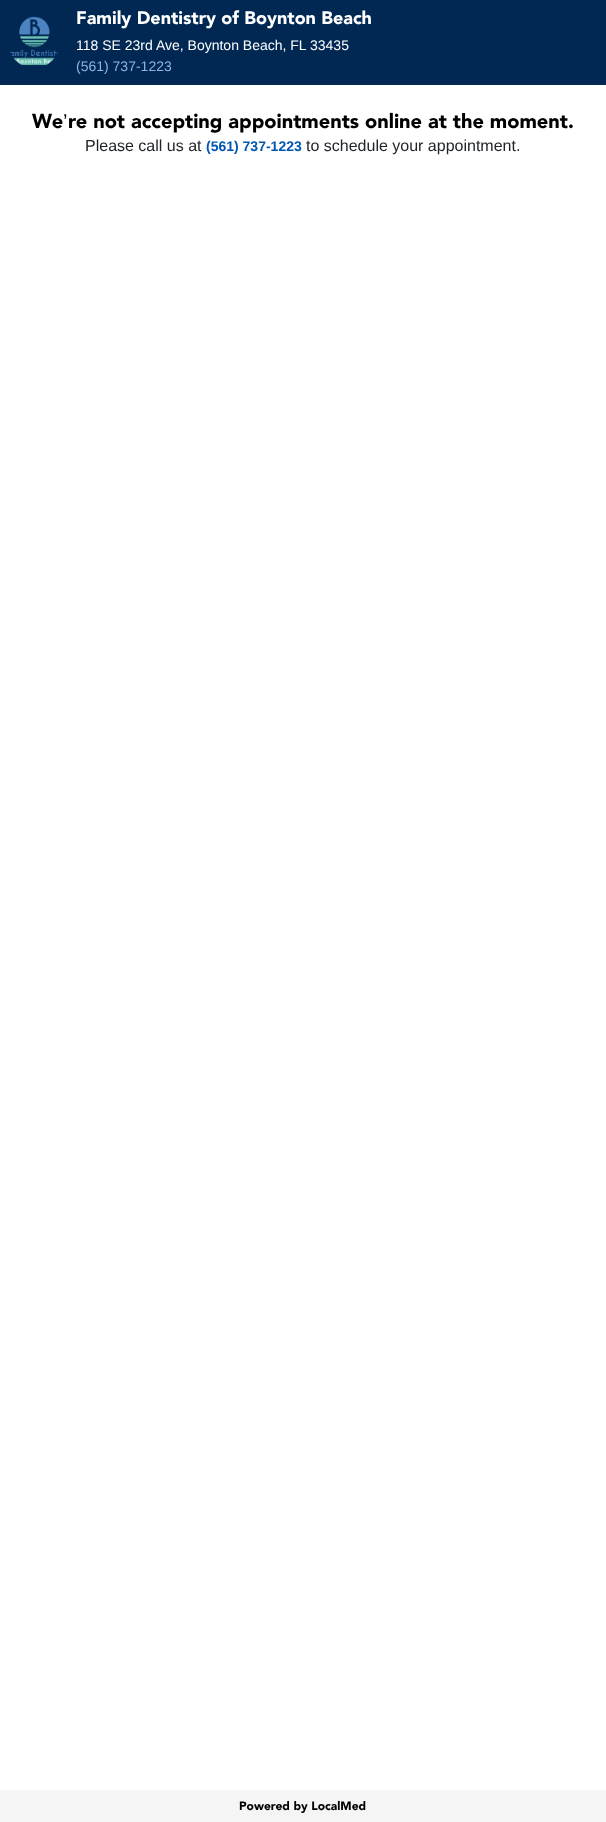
async function draw(canvas) {
	canvas.width = 606;
	canvas.height = 1822;
	const c = canvas.getContext('2d');
	c.miterLimit = 4;
	c.fontKerning = 'normal';
	async function loadImage(src) {
		const img = new Image();
		img.src = src;
		await img.decode();
		return img;
	}

	c.fillStyle = '#fff';
	c.fillRect(0, 0, 606, 1822);
	c.fillStyle = '#002853';
	c.fillRect(0, 0, 606, 85);
	c.drawImage(await loadImage('img1.png'), 10, 16, 48, 50);
	c.font = '900 18px Avenir';
	c.fillStyle = '#fff';
	c.fillText('Family Dentistry of Boynton Beach', 76, 24);
	c.font = '14px Liberation Sans';
	c.fillText('118 SE 23rd Ave, Boynton Beach, FL 33435', 76, 50);
	c.fillStyle = '#8ab6e5';
	c.fillText('(561) 737-1223', 76, 71);
	c.font = '900 20px Avenir';
	c.fillStyle = '#000';
	c.fillText('We', 32, 128);
	c.font = '20px Liberation Sans';
	c.fillText('’', 63, 128);
	c.font = '900 20px Avenir';
	c.fillText('re not accepting appointments online at the moment.', 68, 128);
	c.font = '16px Liberation Sans';
	c.fillStyle = '#212529';
	c.fillText('Please call us at', 85, 151);
	c.font = 'bold 14px Liberation Sans';
	c.fillStyle = '#0056b1';
	c.fillText('(561) 737-1223', 206, 151);
	c.font = '16px Liberation Sans';
	c.fillStyle = '#212529';
	c.fillText('to schedule your appointment.', 306, 151);
	c.fillStyle = '#f5f5f5';
	c.fillRect(0, 1790, 606, 32);
	c.font = '900 12px Avenir';
	c.fillStyle = '#000';
	c.fillText('Powered by LocalMed', 239, 1810);
}

draw(document.querySelector('canvas'));
